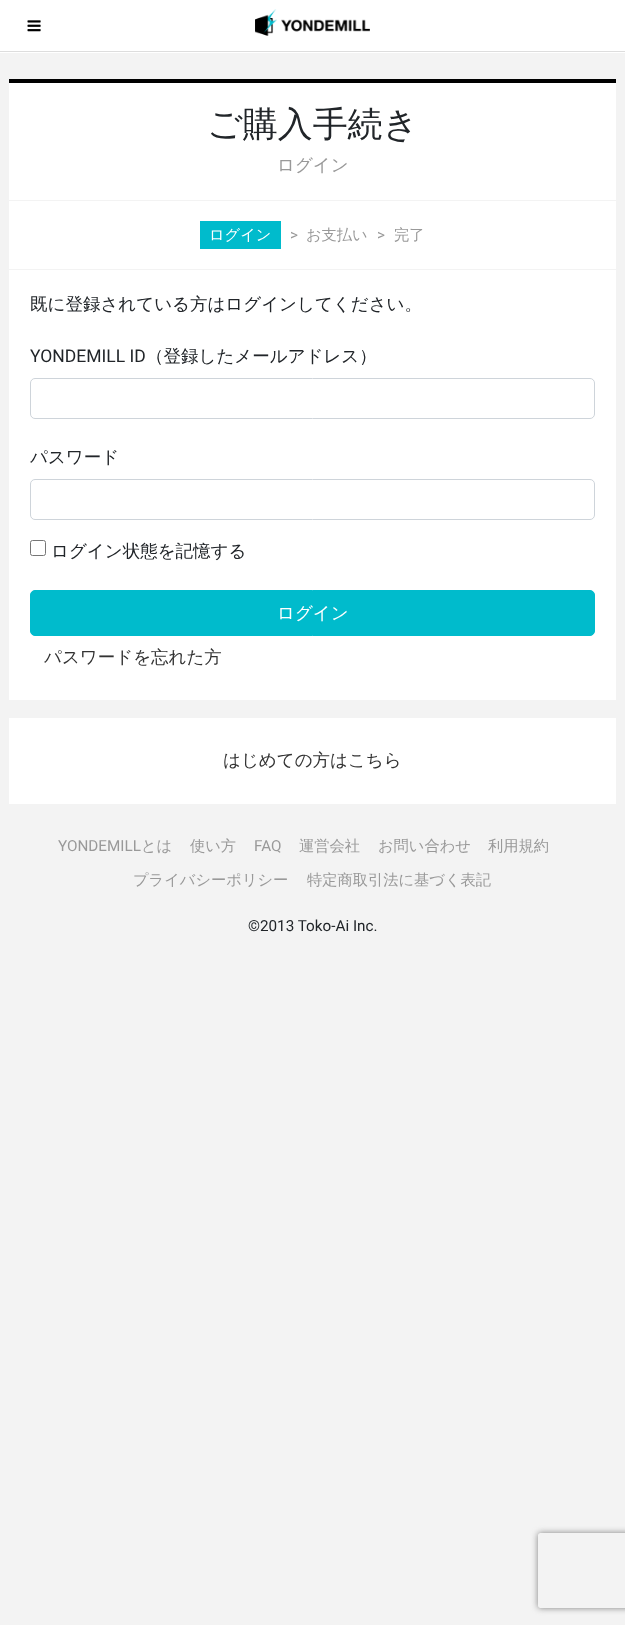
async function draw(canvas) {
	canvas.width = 625;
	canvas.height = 1625;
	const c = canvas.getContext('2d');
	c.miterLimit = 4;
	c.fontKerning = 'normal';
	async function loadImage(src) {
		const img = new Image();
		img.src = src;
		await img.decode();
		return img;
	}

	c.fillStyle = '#f3f3f3';
	c.fillRect(0, 0, 625, 1625);
	c.fillStyle = '#fff';
	c.fillRect(0, 0, 625, 53);
	c.fillStyle = '#ddd';
	c.fillRect(0, 51, 625, 1);
	c.drawImage(await loadImage('img1.png'), 27, 20, 14, 12);
	c.drawImage(await loadImage('img2.png'), 255, 9, 115, 27);
	for (const [x, y, w, h, color] of [
		[9, 83, 607, 617, '#fff'],
		[9, 79, 607, 4, '#000'],
		[9, 200, 607, 1, '#f3f3f3'],
	]) {
		c.fillStyle = color;
		c.fillRect(x, y, w, h);
	}
	c.font = '500 35px WenQuanYi Zen Hei';
	c.fillStyle = '#212529';
	c.fillText('ご購入手続き', 207, 136);
	c.font = '500 17.5px WenQuanYi Zen Hei';
	c.fillStyle = '#999';
	c.fillText('ログイン', 277, 171);
	c.fillStyle = '#f3f3f3';
	c.fillRect(9, 269, 607, 1);
	c.fillStyle = '#0bc';
	c.fillRect(200, 221, 81, 28);
	c.font = '500 15.25px WenQuanYi Zen Hei';
	c.fillStyle = '#fff';
	c.fillText('ログイン', 209, 240);
	c.font = '15.25px Roboto';
	c.fillStyle = '#999';
	c.fillText('>', 290, 240);
	c.font = '500 15.25px WenQuanYi Zen Hei';
	c.fillText('お支払い', 306, 240);
	c.font = '15.25px Roboto';
	c.fillText('>', 377, 240);
	c.font = '500 15.25px WenQuanYi Zen Hei';
	c.fillText('完了', 394, 240);
	c.font = '500 17.5px WenQuanYi Zen Hei';
	c.fillStyle = '#212529';
	c.fillText('既に登録されている方はログインしてください。', 30, 310);
	c.font = '17.5px Roboto';
	c.fillText('YONDEMILL ID', 30, 362);
	c.font = '500 17.5px WenQuanYi Zen Hei';
	c.fillText('（登録したメールアドレス）', 146, 362);
	c.beginPath();
	c.roundRect(30.5, 378.5, 564, 40, 4.5);
	c.strokeStyle = '#ced4da';
	c.stroke();
	c.fillText('パスワード', 30, 463);
	c.beginPath();
	c.roundRect(30.5, 479.5, 564, 40, 4.5);
	c.stroke();
	c.beginPath();
	c.roundRect(30.5, 540.5, 15, 15, 2);
	c.strokeStyle = '#767676';
	c.stroke();
	c.fillText('ログイン状態を記憶する', 51, 557);
	c.fillStyle = '#0bc';
	c.beginPath();
	c.roundRect(30.5, 590.5, 564, 45, 4.5);
	c.fill();
	c.strokeStyle = '#0bc';
	c.stroke();
	c.fillStyle = '#fff';
	c.fillText('ログイン', 277, 619);
	c.save();
	c.beginPath();
	c.moveTo(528, 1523);
	c.lineTo(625, 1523);
	c.lineTo(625, 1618);
	c.lineTo(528, 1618);
	c.closePath();
	c.moveTo(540.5, 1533);
	c.lineTo(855.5, 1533);
	c.bezierCurveTo(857, 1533, 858, 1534, 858, 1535.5);
	c.lineTo(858, 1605.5);
	c.bezierCurveTo(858, 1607, 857, 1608, 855.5, 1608);
	c.lineTo(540.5, 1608);
	c.bezierCurveTo(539, 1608, 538, 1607, 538, 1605.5);
	c.lineTo(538, 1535.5);
	c.bezierCurveTo(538, 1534, 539, 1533, 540.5, 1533);
	c.closePath();
	c.clip('evenodd');
	c.fillStyle = '#808080';
	c.filter = 'blur(3px)';
	c.beginPath();
	c.roundRect(538, 1533, 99, 75, 2.5);
	c.fill();
	c.filter = 'none';
	c.restore();
	c.fillStyle = '#333';
	c.fillText('パスワードを忘れた方', 44, 663);
	c.fillStyle = '#fff';
	c.fillRect(9, 718, 607, 86);
	c.fillStyle = '#333';
	c.fillText('はじめての方はこちら', 223, 766);
	c.font = '15.25px Roboto';
	c.fillStyle = '#999';
	c.fillText('YONDEMILL', 58, 851);
	c.font = '500 15.25px WenQuanYi Zen Hei';
	c.fillText('とは', 141, 851);
	c.fillText('使い方', 190, 851);
	c.font = '15.25px Roboto';
	c.fillText('FAQ', 254, 851);
	c.font = '500 15.25px WenQuanYi Zen Hei';
	for (const [text, x, y] of [
		['運営会社', 299, 851],
		['お問い合わせ', 378, 851],
		['利用規約', 488, 851],
		['プライバシーポリシー', 133, 885],
		['特定商取引法に基づく表記', 307, 885],
	]) {
		c.fillText(text, x, y);
	}
	c.font = '15.25px Roboto';
	c.fillStyle = '#212529';
	c.fillText('©2013 Toko-Ai Inc.', 248, 931);
}

draw(document.querySelector('canvas'));
